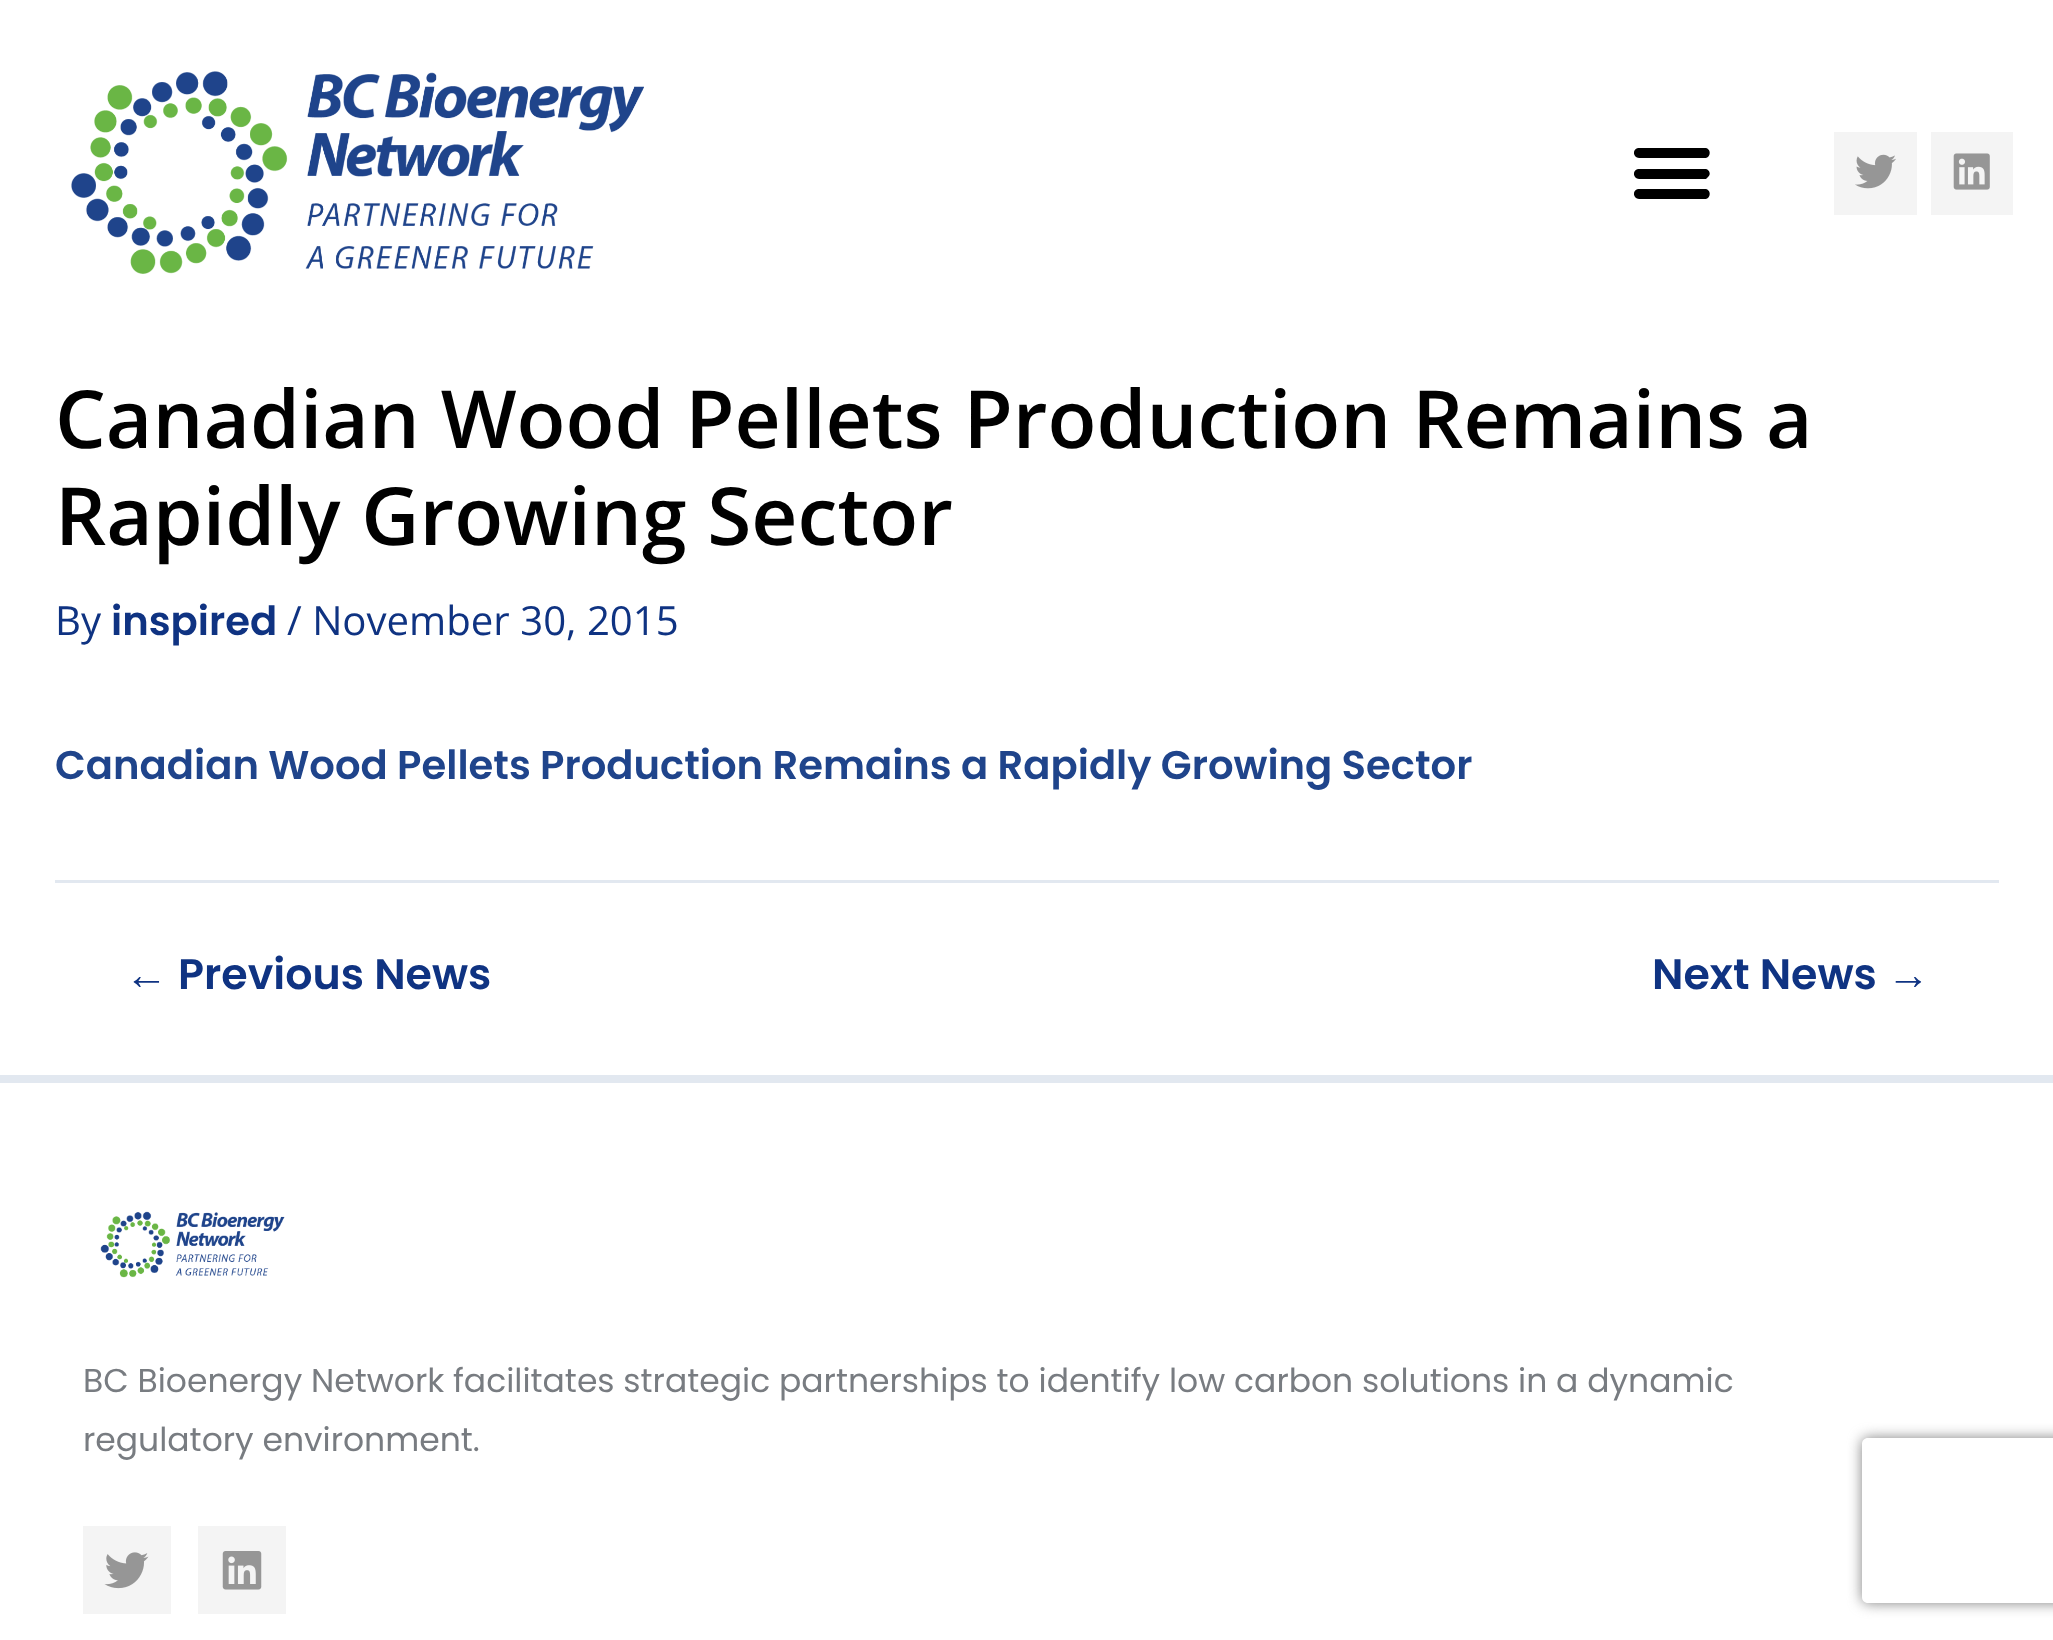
async function draw(canvas) {
	canvas.width = 2053;
	canvas.height = 1640;
	const c = canvas.getContext('2d');
	c.miterLimit = 4;
	c.fontKerning = 'normal';
	async function loadImage(src) {
		const img = new Image();
		img.src = src;
		await img.decode();
		return img;
	}

	c.fillStyle = '#fff';
	c.fillRect(0, 0, 2053, 1640);
	c.drawImage(await loadImage('img1.png'), 71, 71, 573, 203);
	c.fillStyle = '#000';
	c.beginPath();
	c.moveTo(1639, 158);
	c.lineTo(1706, 158);
	c.lineTo(1708, 157);
	c.bezierCurveTo(1711, 154, 1710, 149, 1706, 148);
	c.lineTo(1638, 148);
	c.bezierCurveTo(1632, 149, 1633, 158, 1639, 158);
	c.closePath();
	c.moveTo(1639, 179);
	c.lineTo(1706, 179);
	c.lineTo(1708, 177);
	c.bezierCurveTo(1711, 175, 1710, 170, 1706, 169);
	c.lineTo(1638, 169);
	c.bezierCurveTo(1632, 170, 1633, 179, 1639, 179);
	c.closePath();
	c.moveTo(1639, 199);
	c.lineTo(1706, 199);
	c.lineTo(1708, 198);
	c.bezierCurveTo(1711, 195, 1710, 190, 1706, 189);
	c.lineTo(1638, 189);
	c.bezierCurveTo(1632, 190, 1633, 199, 1639, 199);
	c.closePath();
	c.fill();
	c.fillStyle = '#f4f4f4';
	c.fillRect(1834, 132, 83, 83);
	c.drawImage(await loadImage('img2.png'), 1855, 154, 41, 35);
	c.fillRect(1931, 132, 82, 83);
	c.drawImage(await loadImage('img3.png'), 1953, 153, 37, 37);
	c.font = '600 80.25px Open Sans';
	c.fillStyle = '#000';
	c.fillText('Canadian Wood Pellets Production Remains a', 55, 448);
	c.fillText('Rapidly Growing Sector', 55, 545);
	c.font = '40.15px Open Sans';
	c.fillStyle = '#0f3382';
	c.fillText('By', 55, 635);
	c.font = '600 40.15px Poppins';
	c.fillText('inspired', 111, 635);
	c.font = '40.15px Open Sans';
	c.fillText('/ November 30, 2015', 287, 635);
	c.wordSpacing = '-0.25px';
	c.font = '600 40.15px Poppins';
	c.fillStyle = '#1f448b';
	c.fillText('Canadian Wood Pellets Production Remains a Rapidly Growing Sector', 55, 779);
	c.fillStyle = '#e2e8f0';
	c.fillRect(55, 880, 1944, 3);
	c.wordSpacing = '0px';
	c.font = 'bold 42.75px Liberation Sans';
	c.fillStyle = '#0f3382';
	c.fillText('←', 125, 989);
	c.font = '600 42.75px Poppins';
	c.fillText('Previous News', 178, 989);
	c.fillText('Next News', 1652, 989);
	c.font = 'bold 42.75px Liberation Sans';
	c.fillText('→', 1887, 989);
	c.fillStyle = '#e2e8f0';
	c.fillRect(0, 1075, 2053, 8);
	c.drawImage(await loadImage('img4.png'), 100, 1211, 185, 67);
	c.font = '33px Poppins';
	c.fillStyle = '#787c81';
	c.fillText('BC Bioenergy Network facilitates strategic partnerships to identify low carbon solutions in a dynamic', 83, 1392);
	c.fillText('regulatory environment.', 83, 1451);
	c.fillStyle = '#f4f4f4';
	c.fillRect(83, 1526, 88, 88);
	c.drawImage(await loadImage('img5.png'), 104, 1552, 45, 37);
	c.fillRect(198, 1526, 88, 88);
	c.drawImage(await loadImage('img6.png'), 222, 1551, 40, 39);
	c.save();
	c.beginPath();
	c.moveTo(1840, 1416);
	c.lineTo(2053, 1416);
	c.lineTo(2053, 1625);
	c.lineTo(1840, 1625);
	c.closePath();
	c.moveTo(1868, 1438);
	c.lineTo(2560, 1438);
	c.bezierCurveTo(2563.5, 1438, 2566, 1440.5, 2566, 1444);
	c.lineTo(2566, 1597);
	c.bezierCurveTo(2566, 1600.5, 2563.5, 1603, 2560, 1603);
	c.lineTo(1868, 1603);
	c.bezierCurveTo(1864.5, 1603, 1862, 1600.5, 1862, 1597);
	c.lineTo(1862, 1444);
	c.bezierCurveTo(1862, 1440.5, 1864.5, 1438, 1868, 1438);
	c.closePath();
	c.clip('evenodd');
	c.fillStyle = '#808080';
	c.filter = 'blur(7px)';
	c.beginPath();
	c.roundRect(1862, 1438, 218, 165, 6);
	c.fill();
	c.filter = 'none';
	c.restore();
}

draw(document.querySelector('canvas'));
